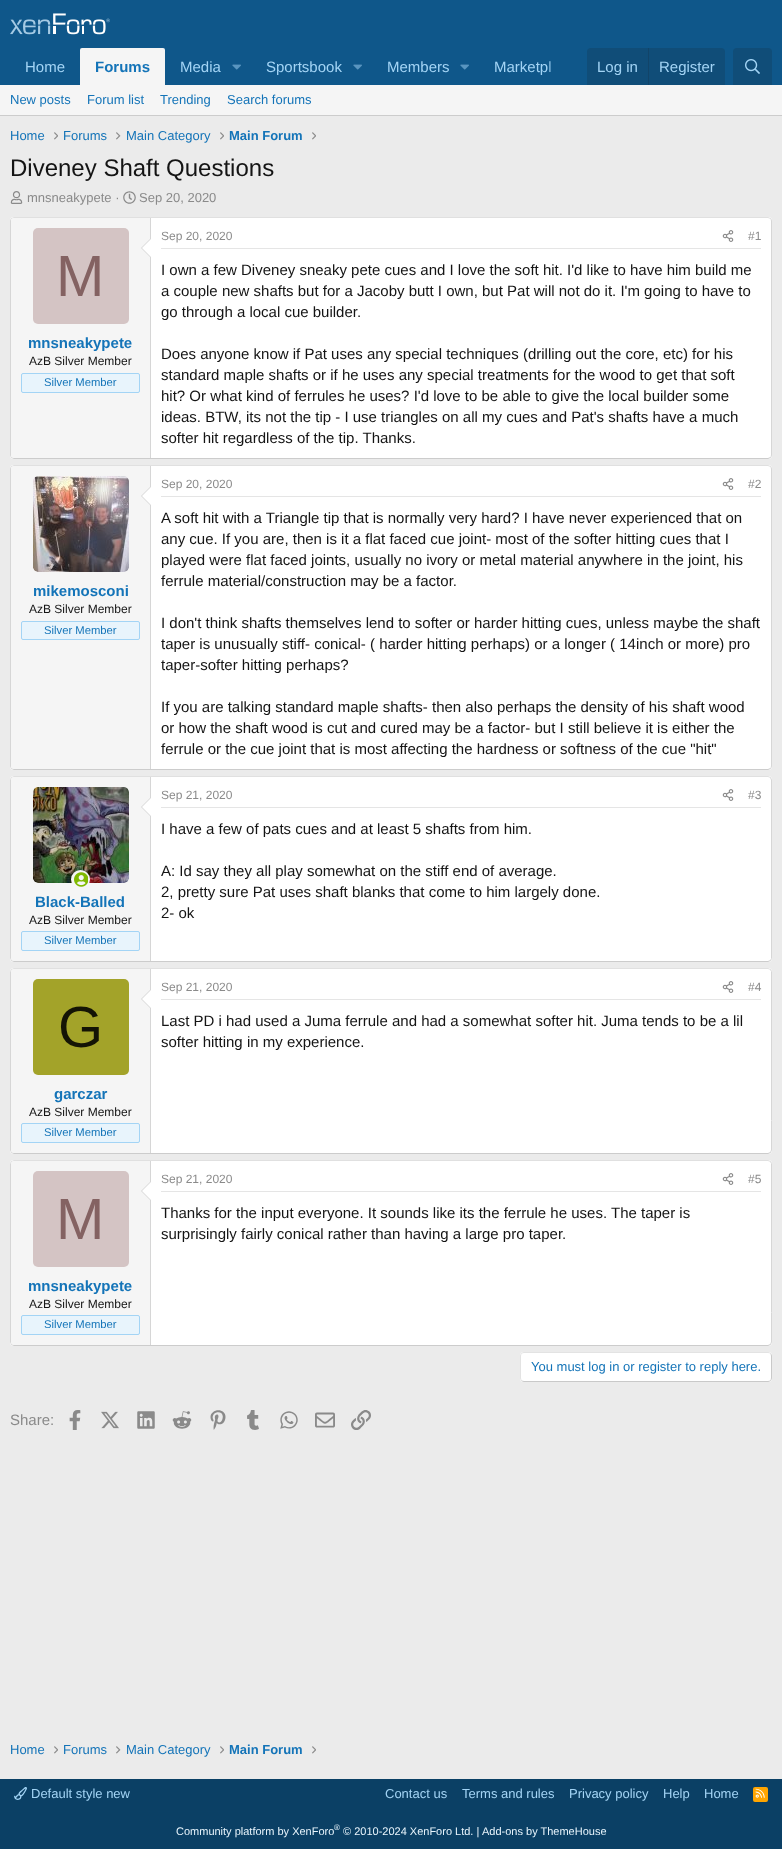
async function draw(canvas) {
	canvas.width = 782;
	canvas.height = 1849;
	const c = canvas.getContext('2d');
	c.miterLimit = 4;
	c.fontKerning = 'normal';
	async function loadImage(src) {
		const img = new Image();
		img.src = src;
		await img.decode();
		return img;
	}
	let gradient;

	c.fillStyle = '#ebebeb';
	c.fillRect(0, 0, 782, 1849);
	c.fillStyle = '#0f578a';
	c.fillRect(0, 0, 782, 85);
	c.drawImage(await loadImage('img1.png'), 10, 13, 100, 22);
	c.font = '15px Liberation Sans';
	c.fillStyle = '#a3d4f5';
	c.fillText('Home', 25, 72);
	c.fillStyle = '#f5f5f5';
	c.beginPath();
	c.roundRect(80, 48, 85, 37, [2, 2, 0, 0]);
	c.fill();
	c.font = 'bold 15px Liberation Sans';
	c.fillStyle = '#1474b8';
	c.fillText('Forums', 95, 72);
	c.font = '15px Liberation Sans';
	c.fillStyle = '#a3d4f5';
	c.fillText('Media', 180, 72);
	c.drawImage(await loadImage('img2.png'), 232, 64, 9, 6);
	c.fillText('Sportsbook', 266, 72);
	c.drawImage(await loadImage('img2.png'), 353, 64, 9, 6);
	c.fillText('Members', 387, 72);
	c.drawImage(await loadImage('img2.png'), 460, 64, 9, 6);
	c.fillText('Marketpl', 494, 72);
	gradient = c.createLinearGradient(547, 67, 587, 67);
	gradient.addColorStop(0, '#0f578a00');
	gradient.addColorStop(0.33, '#0f578a');
	c.fillStyle = gradient;
	c.fillRect(549, 61, 2, 11);
	c.fillStyle = '#104d78';
	c.beginPath();
	c.roundRect(587, 48, 138, 37, [4, 4, 0, 0]);
	c.fill();
	c.fillStyle = '#a3d4f5';
	c.fillText('Log in', 597, 72);
	c.fillStyle = '#114469';
	c.fillRect(648, 48, 1, 37);
	c.fillStyle = '#a3d4f5';
	c.fillText('Register', 659, 72);
	c.fillStyle = '#104d78';
	c.beginPath();
	c.roundRect(733, 48, 39, 37, [4, 4, 0, 0]);
	c.fill();
	c.drawImage(await loadImage('img3.png'), 745, 59, 15, 15);
	c.fillStyle = '#f5f5f5';
	c.fillRect(0, 85, 782, 30);
	c.fillStyle = '#ccc';
	c.fillRect(0, 115, 782, 1);
	c.font = '13px Liberation Sans';
	c.fillStyle = '#1474b8';
	for (const [text, x, y] of [
		['New posts', 10, 104],
		['Forum list', 87, 104],
		['Trending', 160, 104],
		['Search forums', 227, 104],
		['Home', 10, 140],
	]) {
		c.fillText(text, x, y);
	}
	c.drawImage(await loadImage('img4.png'), 54, 132, 4, 8);
	c.fillText('Forums', 63, 140);
	c.drawImage(await loadImage('img5.png'), 116, 132, 5, 8);
	c.fillText('Main Category', 126, 140);
	c.drawImage(await loadImage('img4.png'), 220, 132, 4, 8);
	c.font = 'bold 13px Liberation Sans';
	c.fillText('Main Forum', 229, 140);
	c.drawImage(await loadImage('img4.png'), 312, 132, 4, 8);
	c.font = '24px Liberation Sans';
	c.fillStyle = '#141414';
	c.fillText('Diveney Shaft Questions', 10, 176);
	c.drawImage(await loadImage('img6.png'), 10, 191, 13, 13);
	c.font = '13px Liberation Sans';
	c.fillStyle = '#8a8a8a';
	c.fillText('mnsneakypete ·', 27, 202);
	c.drawImage(await loadImage('img7.png'), 123, 191, 13, 13);
	c.fillText('Sep 20, 2020', 139, 202);
	c.fillStyle = '#fff';
	c.beginPath();
	c.roundRect(10, 217, 762, 242, 4);
	c.fill();
	c.beginPath();
	c.moveTo(11.5, 218.5);
	c.lineTo(14, 217.5);
	c.lineTo(768, 217.5);
	c.lineTo(770.5, 218.5);
	c.strokeStyle = '#e0e0e0';
	c.stroke();
	c.beginPath();
	c.moveTo(770.5, 218.5);
	c.bezierCurveTo(771, 219, 771.5, 220, 771.5, 221);
	c.lineTo(771.5, 455);
	c.bezierCurveTo(771.5, 456, 771, 457, 770.5, 457.5);
	c.strokeStyle = '#d6d6d6';
	c.stroke();
	c.beginPath();
	c.moveTo(770.5, 457.5);
	c.lineTo(768, 458.5);
	c.lineTo(14, 458.5);
	c.lineTo(11.5, 457.5);
	c.strokeStyle = '#ccc';
	c.stroke();
	c.beginPath();
	c.moveTo(11.5, 457.5);
	c.bezierCurveTo(11, 457, 10.5, 456, 10.5, 455);
	c.lineTo(10.5, 221);
	c.bezierCurveTo(10.5, 220, 11, 219, 11.5, 218.5);
	c.strokeStyle = '#d6d6d6';
	c.stroke();
	c.fillStyle = '#f5f5f5';
	c.beginPath();
	c.roundRect(11, 218, 140, 240, [3, 0, 0, 3]);
	c.fill();
	c.fillStyle = '#d6d6d6';
	c.fillRect(150, 218, 1, 240);
	c.beginPath();
	c.moveTo(151, 238);
	c.lineTo(151, 258);
	c.lineTo(141, 248);
	c.closePath();
	c.fill();
	c.fillStyle = '#fff';
	c.beginPath();
	c.moveTo(151, 239);
	c.lineTo(151, 257);
	c.lineTo(142, 248);
	c.closePath();
	c.fill();
	c.fillStyle = '#d4c4c4';
	c.beginPath();
	c.roundRect(33, 228, 96, 96, 5);
	c.fill();
	c.font = '58px Liberation Sans';
	c.fillStyle = '#846262';
	c.fillText('M', 56, 296);
	c.font = 'bold 15px Liberation Sans';
	c.fillStyle = '#1474b8';
	c.fillText('mnsneakypete', 28, 348);
	c.font = '12px Liberation Sans';
	c.fillStyle = '#141414';
	c.fillText('AzB Silver Member', 29, 365);
	c.fillStyle = '#e8f4fc';
	c.beginPath();
	c.roundRect(21.5, 373.5, 118, 19, 1.5);
	c.fill();
	c.strokeStyle = '#a3d4f5';
	c.stroke();
	c.font = '11.25px Liberation Sans';
	c.fillStyle = '#1474b8';
	c.fillText('Silver Member', 44, 386);
	c.fillStyle = '#e5e5e5';
	c.fillRect(161, 248, 600, 1);
	c.font = '12px Liberation Sans';
	c.fillStyle = '#8a8a8a';
	c.fillText('Sep 20, 2020', 161, 240);
	c.drawImage(await loadImage('img8.png'), 722, 230, 12, 12);
	c.fillText('#1', 748, 240);
	c.font = '15px Liberation Sans';
	c.fillStyle = '#141414';
	for (const [text, x, y] of [
		['I own a few Diveney sneaky pete cues and I love the soft hit. I\'d like to have him build me', 161, 275],
		['a couple new shafts but for a Jacoby butt I own, but Pat will not do it. I\'m going to have to', 161, 296],
		['go through a local cue builder.', 161, 317],
		['Does anyone know if Pat uses any special techniques (drilling out the core, etc) for his', 161, 359],
		['standard maple shafts or if he uses any special treatments for the wood to get that soft', 161, 380],
		['hit? Or what kind of ferrules he uses? I\'d love to be able to give the local builder some', 161, 401],
		['ideas. BTW, its not the tip - I use triangles on all my cues and Pat\'s shafts have a much', 161, 422],
		['softer hit regardless of the tip. Thanks.', 161, 443],
	]) {
		c.fillText(text, x, y);
	}
	c.fillStyle = '#fff';
	c.beginPath();
	c.roundRect(10, 465, 762, 305, 4);
	c.fill();
	c.beginPath();
	c.moveTo(11.5, 466.5);
	c.lineTo(14, 465.5);
	c.lineTo(768, 465.5);
	c.lineTo(770.5, 466.5);
	c.strokeStyle = '#e0e0e0';
	c.stroke();
	c.beginPath();
	c.moveTo(770.5, 466.5);
	c.bezierCurveTo(771, 467, 771.5, 468, 771.5, 469);
	c.lineTo(771.5, 766);
	c.bezierCurveTo(771.5, 767, 771, 768, 770.5, 768.5);
	c.strokeStyle = '#d6d6d6';
	c.stroke();
	c.beginPath();
	c.moveTo(770.5, 768.5);
	c.lineTo(768, 769.5);
	c.lineTo(14, 769.5);
	c.lineTo(11.5, 768.5);
	c.strokeStyle = '#ccc';
	c.stroke();
	c.beginPath();
	c.moveTo(11.5, 768.5);
	c.bezierCurveTo(11, 768, 10.5, 767, 10.5, 766);
	c.lineTo(10.5, 469);
	c.bezierCurveTo(10.5, 468, 11, 467, 11.5, 466.5);
	c.strokeStyle = '#d6d6d6';
	c.stroke();
	c.fillStyle = '#f5f5f5';
	c.beginPath();
	c.roundRect(11, 466, 140, 303, [3, 0, 0, 3]);
	c.fill();
	c.fillStyle = '#d6d6d6';
	c.fillRect(150, 466, 1, 303);
	c.fillStyle = '#fff';
	c.beginPath();
	c.roundRect(33, 476, 96, 96, 5);
	c.fill();
	c.drawImage(await loadImage('img9.png'), 33, 476, 96, 96);
	c.fillStyle = '#d6d6d6';
	c.beginPath();
	c.moveTo(151, 486);
	c.lineTo(151, 506);
	c.lineTo(141, 496);
	c.closePath();
	c.fill();
	c.fillStyle = '#fff';
	c.beginPath();
	c.moveTo(151, 487);
	c.lineTo(151, 505);
	c.lineTo(142, 496);
	c.closePath();
	c.fill();
	c.font = 'bold 15px Liberation Sans';
	c.fillStyle = '#1474b8';
	c.fillText('mikemosconi', 33, 596);
	c.font = '12px Liberation Sans';
	c.fillStyle = '#141414';
	c.fillText('AzB Silver Member', 29, 613);
	c.fillStyle = '#e8f4fc';
	c.beginPath();
	c.roundRect(21.5, 621.5, 118, 18, 1.5);
	c.fill();
	c.strokeStyle = '#a3d4f5';
	c.stroke();
	c.font = '11.25px Liberation Sans';
	c.fillStyle = '#1474b8';
	c.fillText('Silver Member', 44, 634);
	c.fillStyle = '#e5e5e5';
	c.fillRect(161, 496, 600, 1);
	c.font = '12px Liberation Sans';
	c.fillStyle = '#8a8a8a';
	c.fillText('Sep 20, 2020', 161, 488);
	c.drawImage(await loadImage('img8.png'), 722, 478, 12, 12);
	c.fillText('#2', 748, 488);
	c.font = '15px Liberation Sans';
	c.fillStyle = '#141414';
	for (const [text, x, y] of [
		['A soft hit with a Triangle tip that is normally very hard? I have never experienced that on', 161, 523],
		['any cue. If you are, then is it a flat faced cue joint- most of the softer hitting cues that I', 161, 544],
		['played were flat faced joints, usually no ivory or metal material anywhere in the joint, his', 161, 565],
		['ferrule material/construction may be a factor.', 161, 586],
		['I don\'t think shafts themselves lend to softer or harder hitting cues, unless maybe the shaft', 161, 628],
		['taper is unusually stiff- conical- ( harder hitting perhaps) or a longer ( 14inch or more) pro', 161, 649],
		['taper-softer hitting perhaps?', 161, 670],
		['If you are talking standard maple shafts- then also perhaps the density of his shaft wood', 161, 712],
		['or how the shaft wood is cut and cured may be a factor- but I still believe it is either the', 161, 733],
		['ferrule or the cue joint that is most affecting the hardness or softness of the cue "hit"', 161, 754],
	]) {
		c.fillText(text, x, y);
	}
	c.fillStyle = '#fff';
	c.beginPath();
	c.roundRect(10, 776, 762, 186, 4);
	c.fill();
	c.beginPath();
	c.moveTo(11.5, 777.5);
	c.lineTo(14, 776.5);
	c.lineTo(768, 776.5);
	c.lineTo(770.5, 777.5);
	c.strokeStyle = '#e0e0e0';
	c.stroke();
	c.beginPath();
	c.moveTo(770.5, 777.5);
	c.lineTo(771.5, 780);
	c.lineTo(771.5, 958.5);
	c.lineTo(770.5, 960.5);
	c.strokeStyle = '#d6d6d6';
	c.stroke();
	c.beginPath();
	c.moveTo(770.5, 960.5);
	c.lineTo(768, 961.5);
	c.lineTo(14, 961.5);
	c.lineTo(11.5, 960.5);
	c.strokeStyle = '#ccc';
	c.stroke();
	c.beginPath();
	c.moveTo(11.5, 960.5);
	c.lineTo(10.5, 958);
	c.lineTo(10.5, 779.5);
	c.lineTo(11.5, 777.5);
	c.strokeStyle = '#d6d6d6';
	c.stroke();
	c.fillStyle = '#f5f5f5';
	c.beginPath();
	c.roundRect(11, 777, 140, 184, [3, 0, 0, 3]);
	c.fill();
	c.fillStyle = '#d6d6d6';
	c.fillRect(150, 777, 1, 184);
	c.fillStyle = '#fff';
	c.beginPath();
	c.roundRect(33, 787, 96, 96, 5);
	c.fill();
	c.drawImage(await loadImage('img10.png'), 33, 787, 96, 96);
	c.fillStyle = '#f5f5f5';
	c.beginPath();
	c.arc(80.5, 879.5, 9.5, 0, 2 * Math.PI);
	c.fill();
	c.drawImage(await loadImage('img11.png'), 74, 872, 14, 15);
	c.fillStyle = '#d6d6d6';
	c.beginPath();
	c.moveTo(151, 797);
	c.lineTo(151, 817);
	c.lineTo(141, 807);
	c.closePath();
	c.fill();
	c.fillStyle = '#fff';
	c.beginPath();
	c.moveTo(151, 798);
	c.lineTo(151, 816);
	c.lineTo(142, 807);
	c.closePath();
	c.fill();
	c.font = 'bold 15px Liberation Sans';
	c.fillStyle = '#1474b8';
	c.fillText('Black-Balled', 35, 907);
	c.font = '12px Liberation Sans';
	c.fillStyle = '#141414';
	c.fillText('AzB Silver Member', 29, 924);
	c.fillStyle = '#e8f4fc';
	c.beginPath();
	c.roundRect(21.5, 931.5, 118, 19, 1.5);
	c.fill();
	c.strokeStyle = '#a3d4f5';
	c.stroke();
	c.font = '11.25px Liberation Sans';
	c.fillStyle = '#1474b8';
	c.fillText('Silver Member', 44, 944);
	c.fillStyle = '#e5e5e5';
	c.fillRect(161, 807, 600, 1);
	c.font = '12px Liberation Sans';
	c.fillStyle = '#8a8a8a';
	c.fillText('Sep 21, 2020', 161, 799);
	c.drawImage(await loadImage('img8.png'), 722, 789, 12, 12);
	c.fillText('#3', 748, 799);
	c.font = '15px Liberation Sans';
	c.fillStyle = '#141414';
	for (const [text, x, y] of [
		['I have a few of pats cues and at least 5 shafts from him.', 161, 834],
		['A: Id say they all play somewhat on the stiff end of average.', 161, 876],
		['2, pretty sure Pat uses shaft blanks that come to him largely done.', 161, 897],
		['2- ok', 161, 918],
	]) {
		c.fillText(text, x, y);
	}
	c.fillStyle = '#fff';
	c.beginPath();
	c.roundRect(10, 968, 762, 186, 4);
	c.fill();
	c.beginPath();
	c.moveTo(11.5, 969.5);
	c.lineTo(14, 968.5);
	c.lineTo(768, 968.5);
	c.lineTo(770.5, 969.5);
	c.strokeStyle = '#e0e0e0';
	c.stroke();
	c.beginPath();
	c.moveTo(770.5, 969.5);
	c.lineTo(771.5, 971.5);
	c.lineTo(771.5, 1120.5);
	c.lineTo(771.5, 1150);
	c.lineTo(770.5, 1152.5);
	c.strokeStyle = '#d6d6d6';
	c.stroke();
	c.beginPath();
	c.moveTo(770.5, 1152.5);
	c.lineTo(768, 1153.5);
	c.lineTo(14, 1153.5);
	c.lineTo(11.5, 1152.5);
	c.strokeStyle = '#ccc';
	c.stroke();
	c.beginPath();
	c.moveTo(11.5, 1152.5);
	c.lineTo(10.5, 1150);
	c.lineTo(10.5, 971.5);
	c.lineTo(11.5, 969.5);
	c.strokeStyle = '#d6d6d6';
	c.stroke();
	c.fillStyle = '#f5f5f5';
	c.beginPath();
	c.roundRect(11, 969, 140, 184, [3, 0, 0, 3]);
	c.fill();
	c.fillStyle = '#d6d6d6';
	c.fillRect(150, 969, 1, 184);
	c.beginPath();
	c.moveTo(151, 989);
	c.lineTo(151, 1009);
	c.lineTo(141, 999);
	c.closePath();
	c.fill();
	c.fillStyle = '#fff';
	c.beginPath();
	c.moveTo(151, 990);
	c.lineTo(151, 1008);
	c.lineTo(142, 999);
	c.closePath();
	c.fill();
	c.fillStyle = '#a3a329';
	c.beginPath();
	c.roundRect(33, 979, 96, 96, 5);
	c.fill();
	c.font = '58px Liberation Sans';
	c.fillStyle = '#141405';
	c.fillText('G', 58, 1047);
	c.font = 'bold 15px Liberation Sans';
	c.fillStyle = '#1474b8';
	c.fillText('garczar', 54, 1099);
	c.font = '12px Liberation Sans';
	c.fillStyle = '#141414';
	c.fillText('AzB Silver Member', 29, 1116);
	c.fillStyle = '#e8f4fc';
	c.beginPath();
	c.roundRect(21.5, 1123.5, 118, 19, 1.5);
	c.fill();
	c.strokeStyle = '#a3d4f5';
	c.stroke();
	c.font = '11.25px Liberation Sans';
	c.fillStyle = '#1474b8';
	c.fillText('Silver Member', 44, 1136);
	c.fillStyle = '#e5e5e5';
	c.fillRect(161, 999, 600, 1);
	c.font = '12px Liberation Sans';
	c.fillStyle = '#8a8a8a';
	c.fillText('Sep 21, 2020', 161, 991);
	c.drawImage(await loadImage('img8.png'), 722, 981, 12, 12);
	c.fillText('#4', 748, 991);
	c.font = '15px Liberation Sans';
	c.fillStyle = '#141414';
	c.fillText('Last PD i had used a Juma ferrule and had a somewhat softer hit. Juma tends to be a lil', 161, 1026);
	c.fillText('softer hitting in my experience.', 161, 1047);
	c.fillStyle = '#fff';
	c.beginPath();
	c.roundRect(10, 1160, 762, 186, 4);
	c.fill();
	c.beginPath();
	c.moveTo(11.5, 1161.5);
	c.lineTo(14, 1160.5);
	c.lineTo(768, 1160.5);
	c.lineTo(770.5, 1161.5);
	c.strokeStyle = '#e0e0e0';
	c.stroke();
	c.beginPath();
	c.moveTo(770.5, 1161.5);
	c.lineTo(771.5, 1163.5);
	c.lineTo(771.5, 1312.5);
	c.lineTo(771.5, 1342);
	c.lineTo(770.5, 1344.5);
	c.strokeStyle = '#d6d6d6';
	c.stroke();
	c.beginPath();
	c.moveTo(770.5, 1344.5);
	c.lineTo(768, 1345.5);
	c.lineTo(14, 1345.5);
	c.lineTo(11.5, 1344.5);
	c.strokeStyle = '#ccc';
	c.stroke();
	c.beginPath();
	c.moveTo(11.5, 1344.5);
	c.lineTo(10.5, 1342);
	c.lineTo(10.5, 1163.5);
	c.lineTo(11.5, 1161.5);
	c.strokeStyle = '#d6d6d6';
	c.stroke();
	c.fillStyle = '#f5f5f5';
	c.beginPath();
	c.roundRect(11, 1161, 140, 184, [3, 0, 0, 3]);
	c.fill();
	c.fillStyle = '#d6d6d6';
	c.fillRect(150, 1161, 1, 184);
	c.beginPath();
	c.moveTo(151, 1181);
	c.lineTo(151, 1201);
	c.lineTo(141, 1191);
	c.closePath();
	c.fill();
	c.fillStyle = '#fff';
	c.beginPath();
	c.moveTo(151, 1182);
	c.lineTo(151, 1200);
	c.lineTo(142, 1191);
	c.closePath();
	c.fill();
	c.fillStyle = '#d4c4c4';
	c.beginPath();
	c.roundRect(33, 1171, 96, 96, 5);
	c.fill();
	c.font = '58px Liberation Sans';
	c.fillStyle = '#846262';
	c.fillText('M', 56, 1239);
	c.font = 'bold 15px Liberation Sans';
	c.fillStyle = '#1474b8';
	c.fillText('mnsneakypete', 28, 1291);
	c.font = '12px Liberation Sans';
	c.fillStyle = '#141414';
	c.fillText('AzB Silver Member', 29, 1308);
	c.fillStyle = '#e8f4fc';
	c.beginPath();
	c.roundRect(21.5, 1315.5, 118, 19, 1.5);
	c.fill();
	c.strokeStyle = '#a3d4f5';
	c.stroke();
	c.font = '11.25px Liberation Sans';
	c.fillStyle = '#1474b8';
	c.fillText('Silver Member', 44, 1328);
	c.fillStyle = '#e5e5e5';
	c.fillRect(161, 1191, 600, 1);
	c.font = '12px Liberation Sans';
	c.fillStyle = '#8a8a8a';
	c.fillText('Sep 21, 2020', 161, 1183);
	c.drawImage(await loadImage('img8.png'), 722, 1173, 12, 12);
	c.fillText('#5', 748, 1183);
	c.font = '15px Liberation Sans';
	c.fillStyle = '#141414';
	c.fillText('Thanks for the input everyone. It sounds like its the ferrule he uses. The taper is', 161, 1218);
	c.fillText('surprisingly fairly conical rather than having a large pro taper.', 161, 1239);
	c.fillStyle = '#fff';
	c.beginPath();
	c.roundRect(520, 1352, 252, 30, 4);
	c.fill();
	c.beginPath();
	c.moveTo(770.5, 1353.5);
	c.bezierCurveTo(771, 1354, 771.5, 1355, 771.5, 1356);
	c.lineTo(771.5, 1378);
	c.bezierCurveTo(771.5, 1379, 771, 1380, 770.5, 1380.5);
	c.bezierCurveTo(770, 1381, 769, 1381.5, 768, 1381.5);
	c.lineTo(524, 1381.5);
	c.bezierCurveTo(523, 1381.5, 522, 1381, 521.5, 1380.5);
	c.strokeStyle = '#c9c9c9';
	c.stroke();
	c.beginPath();
	c.moveTo(521.5, 1380.5);
	c.bezierCurveTo(521, 1380, 520.5, 1379, 520.5, 1378);
	c.lineTo(520.5, 1356);
	c.bezierCurveTo(520.5, 1355, 521, 1354, 521.5, 1353.5);
	c.bezierCurveTo(522, 1353, 523, 1352.5, 524, 1352.5);
	c.lineTo(768, 1352.5);
	c.bezierCurveTo(769, 1352.5, 770, 1353, 770.5, 1353.5);
	c.strokeStyle = '#e3e3e3';
	c.stroke();
	c.font = '13px Liberation Sans';
	c.fillStyle = '#1474b8';
	c.fillText('You must log in or register to reply here.', 531, 1371);
	c.font = '15px Liberation Sans';
	c.fillStyle = '#8a8a8a';
	c.fillText('Share:', 10, 1425);
	c.drawImage(await loadImage('img12.png'), 69, 1410, 12, 20);
	c.drawImage(await loadImage('img13.png'), 101, 1411, 18, 18);
	c.drawImage(await loadImage('img14.png'), 137, 1411, 18, 18);
	c.drawImage(await loadImage('img15.png'), 172, 1411, 20, 18);
	c.drawImage(await loadImage('img16.png'), 210, 1410, 16, 20);
	c.drawImage(await loadImage('img17.png'), 247, 1410, 12, 20);
	c.drawImage(await loadImage('img18.png'), 280, 1411, 18, 18);
	c.drawImage(await loadImage('img19.png'), 315, 1412, 20, 16);
	c.drawImage(await loadImage('img20.png'), 351, 1410, 20, 20);
	c.font = '13px Liberation Sans';
	c.fillStyle = '#1474b8';
	c.fillText('Home', 10, 1754);
	c.drawImage(await loadImage('img4.png'), 54, 1746, 4, 8);
	c.fillText('Forums', 63, 1754);
	c.drawImage(await loadImage('img5.png'), 116, 1746, 5, 8);
	c.fillText('Main Category', 126, 1754);
	c.drawImage(await loadImage('img4.png'), 220, 1746, 4, 8);
	c.font = 'bold 13px Liberation Sans';
	c.fillText('Main Forum', 229, 1754);
	c.drawImage(await loadImage('img4.png'), 312, 1746, 4, 8);
	c.fillStyle = '#0b4065';
	c.fillRect(0, 1779, 782, 70);
	c.drawImage(await loadImage('img21.png'), 14, 1787, 13, 13);
	c.font = '13px Liberation Sans';
	c.fillStyle = '#a3d4f5';
	for (const [text, x, y] of [
		['Default style new', 31, 1798],
		['Contact us', 385, 1798],
		['Terms and rules', 462, 1798],
		['Privacy policy', 569, 1798],
		['Help', 663, 1798],
		['Home', 704, 1798],
	]) {
		c.fillText(text, x, y);
	}
	c.fillStyle = '#ffa500';
	c.beginPath();
	c.roundRect(753, 1787, 15, 15, 2);
	c.fill();
	c.drawImage(await loadImage('img22.png'), 755, 1788, 10, 10);
	c.font = '11px Liberation Sans';
	c.fillStyle = '#e8f4fc';
	c.fillText('Community platform by XenForo', 176, 1835);
	c.font = '8px Liberation Sans';
	c.fillText('®', 334, 1830);
	c.font = '11px Liberation Sans';
	c.fillText('© 2010-2024 XenForo Ltd. |', 343, 1835);
	c.fillText('Add-ons by ThemeHouse', 482, 1835);
}

draw(document.querySelector('canvas'));
